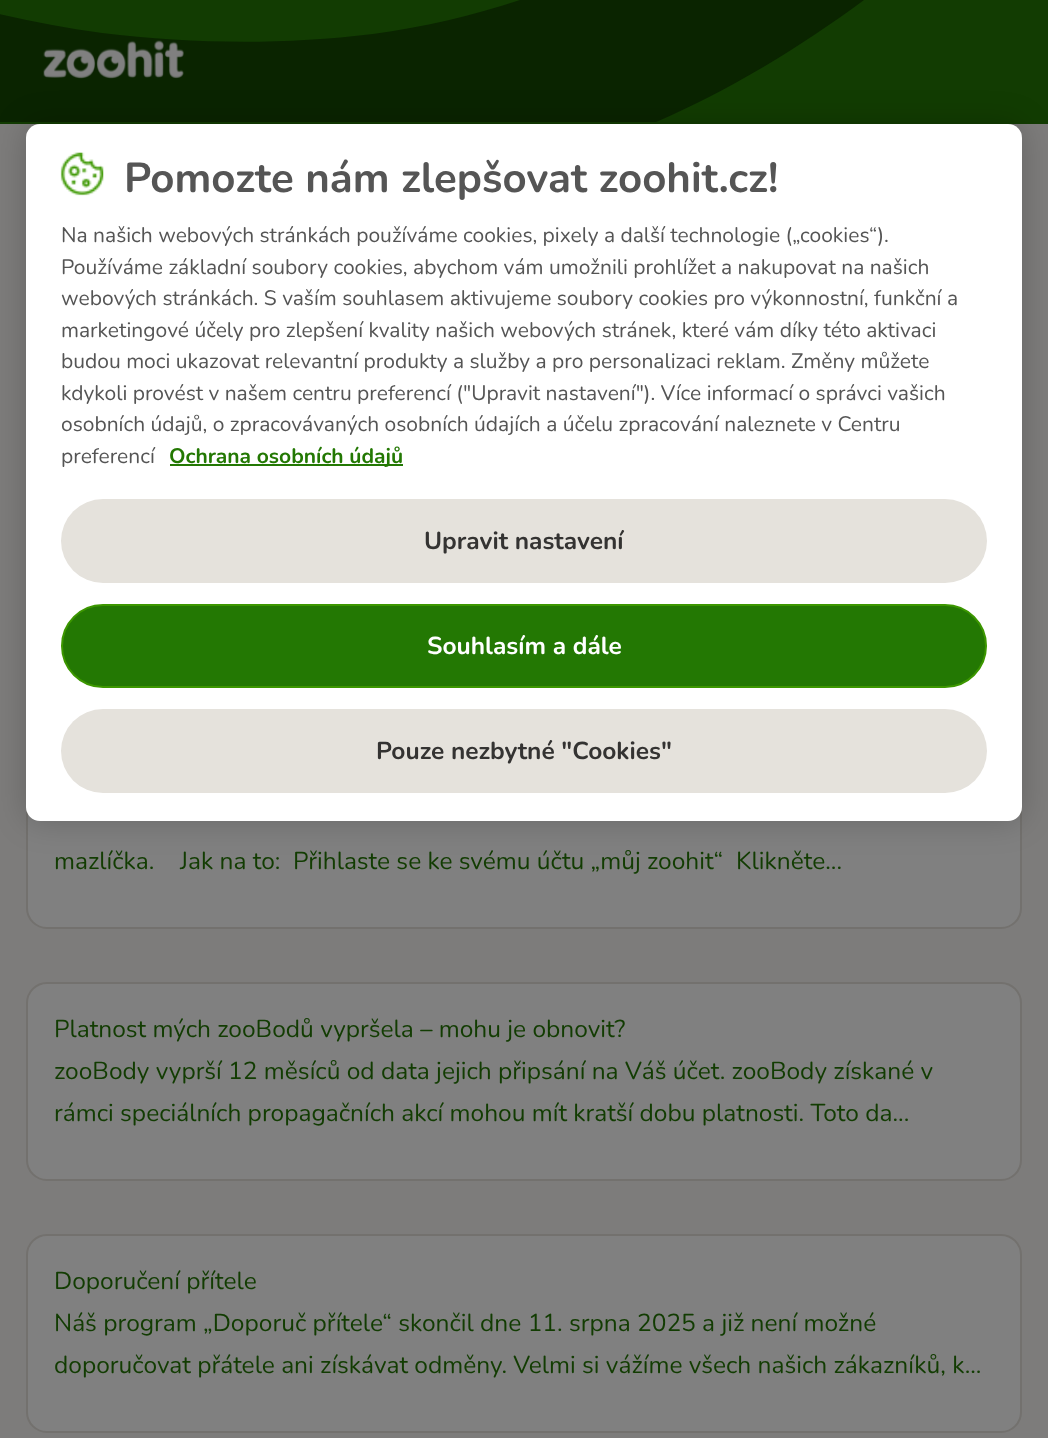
async function draw(canvas) {
	canvas.width = 1048;
	canvas.height = 1438;
	const c = canvas.getContext('2d');
	c.miterLimit = 4;
	c.fontKerning = 'normal';
	async function loadImage(src) {
		const img = new Image();
		img.src = src;
		await img.decode();
		return img;
	}

	c.fillStyle = '#7d7c7b';
	c.fillRect(0, 0, 1048, 1438);
	c.fillStyle = '#123c02';
	c.fillRect(0, 0, 1048, 124);
	c.fillStyle = '#0a2400';
	c.beginPath();
	c.moveTo(656, 122);
	c.bezierCurveTo(730, 90, 799, 48, 864, 0);
	c.lineTo(520, 0);
	c.bezierCurveTo(472, 16, 423, 27, 373, 34);
	c.bezierCurveTo(283, 45, 192, 44, 102, 33);
	c.bezierCurveTo(48, 26, -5, 14, -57, 0);
	c.lineTo(-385, 0);
	c.lineTo(-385, 48);
	c.bezierCurveTo(-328, 76, -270, 101, -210, 122);
	c.closePath();
	c.fill();
	c.drawImage(await loadImage('img1.png'), 43, 40, 141, 39);
	c.fillStyle = '#808080';
	c.beginPath();
	c.roundRect(27, 729, 994, 199, 20);
	c.fill();
	c.strokeStyle = '#73716e';
	c.lineWidth = 2;
	c.stroke();
	c.fillStyle = '#00000033';
	c.filter = 'blur(16px)';
	c.beginPath();
	c.roundRect(26, 124, 996, 697, 14);
	c.fill();
	c.filter = 'none';
	c.fillStyle = '#fff';
	c.beginPath();
	c.roundRect(26, 124, 996, 697, 14);
	c.fill();
	c.drawImage(await loadImage('img2.png'), 60, 152, 44, 44);
	c.font = 'bold 42px Nunito';
	c.fillStyle = '#555';
	c.fillText('Pomozte nám zlepšovat zoohit.cz!', 124, 192);
	c.font = '21px Nunito';
	for (const [text, x, y] of [
		['Na našich webových stránkách používáme cookies, pixely a další technologie („cookies“).', 61, 242],
		['Používáme základní soubory cookies, abychom vám umožnili prohlížet a nakupovat na našich', 61, 274],
		['webových stránkách. S vaším souhlasem aktivujeme soubory cookies pro výkonnostní, funkční a', 61, 305],
		['marketingové účely pro zlepšení kvality našich webových stránek, které vám díky této aktivaci', 61, 337],
		['budou moci ukazovat relevantní produkty a služby a pro personalizaci reklam. Změny můžete', 61, 368],
		['kdykoli provést v našem centru preferencí ("Upravit nastavení"). Více informací o správci vašich', 61, 400],
		['osobních údajů, o zpracovávaných osobních údajích a účelu zpracování naleznete v Centru', 61, 431],
		['preferencí', 61, 463],
	]) {
		c.fillText(text, x, y);
	}
	c.fillStyle = '#237803';
	c.fillRect(170, 464, 233, 2);
	c.font = 'bold 21px Nunito';
	c.fillText('Ochrana osobních údajů', 169, 463);
	c.fillStyle = '#e5e2dc';
	c.beginPath();
	c.roundRect(61, 499, 926, 84, 42);
	c.fill();
	c.font = 'bold 24.5px Nunito';
	c.fillStyle = '#343332';
	c.fillText('Upravit nastavení', 424, 549);
	c.fillStyle = '#237803';
	c.beginPath();
	c.roundRect(62, 605, 924, 82, 41);
	c.fill();
	c.strokeStyle = '#3c9700';
	c.stroke();
	c.fillStyle = '#fff';
	c.fillText('Souhlasím a dále', 427, 654);
	c.fillStyle = '#e5e2dc';
	c.beginPath();
	c.roundRect(61, 709, 926, 84, 42);
	c.fill();
	c.fillStyle = '#343332';
	c.fillText('Pouze nezbytné "Cookies"', 376, 759);
	c.font = '24.5px Nunito';
	c.fillStyle = '#123c02';
	for (const [text, x, y] of [
		['mazlíčka.', 54, 869],
		['Jak na to:', 180, 869],
		['Přihlaste se ke svému účtu „můj zoohit“', 293, 869],
		['Klikněte...', 736, 869],
	]) {
		c.fillText(text, x, y);
	}
	c.fillStyle = '#808080';
	c.beginPath();
	c.roundRect(27, 983, 994, 197, 20);
	c.fill();
	c.strokeStyle = '#73716e';
	c.stroke();
	c.fillStyle = '#123c02';
	for (const [text, x, y] of [
		['Platnost mých zooBodů vypršela – mohu je obnovit?', 54, 1037],
		['zooBody vyprší 12 měsíců od data jejich připsání na Váš účet. zooBody získané v', 54, 1079],
		['rámci speciálních propagačních akcí mohou mít kratší dobu platnosti. Toto da...', 54, 1121],
	]) {
		c.fillText(text, x, y);
	}
	c.fillStyle = '#808080';
	c.beginPath();
	c.roundRect(27, 1235, 994, 197, 20);
	c.fill();
	c.stroke();
	c.fillStyle = '#123c02';
	for (const [text, x, y] of [
		['Doporučení přítele', 54, 1289],
		['Náš program „Doporuč přítele“ skončil dne 11. srpna 2025 a již není možné', 54, 1331],
		['doporučovat přátele ani získávat odměny. Velmi si vážíme všech našich zákazníků, k...', 54, 1373],
	]) {
		c.fillText(text, x, y);
	}
}

draw(document.querySelector('canvas'));
